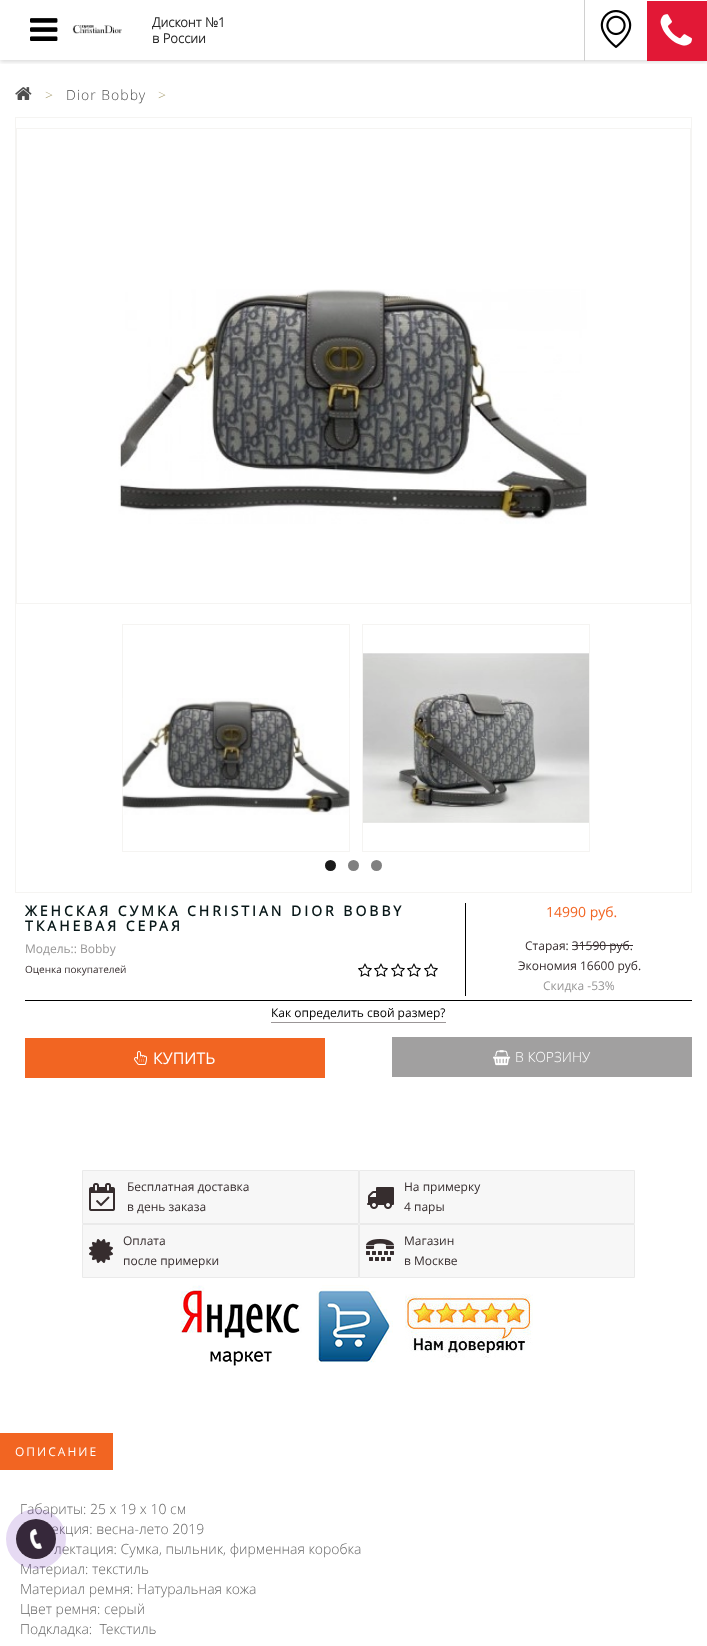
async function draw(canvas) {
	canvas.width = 707;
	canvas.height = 1646;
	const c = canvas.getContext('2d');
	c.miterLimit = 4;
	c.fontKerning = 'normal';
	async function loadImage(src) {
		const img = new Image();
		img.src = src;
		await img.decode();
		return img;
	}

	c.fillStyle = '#fff';
	c.fillRect(0, 0, 707, 1646);
	c.save();
	c.beginPath();
	c.rect(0, 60, 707, 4);
	c.clip();
	c.fillStyle = '#00000024';
	c.filter = 'blur(2px)';
	c.beginPath();
	c.rect(0, 2, 707, 60);
	c.fill();
	c.filter = 'none';
	c.restore();
	c.drawImage(await loadImage('img1.png'), 30, 18, 28, 23);
	c.drawImage(await loadImage('img2.png'), 72, 25, 50, 9);
	c.font = 'bold 13px Open Sans';
	c.fillStyle = '#262626';
	c.fillText('Дисконт №1', 152, 27);
	c.fillText('в России', 152, 43);
	c.fillStyle = '#d0d0d0';
	c.fillRect(584, 0, 1, 61);
	c.drawImage(await loadImage('img3.png'), 600, 10, 32, 38);
	c.fillStyle = '#e21836';
	c.fillRect(647, 1, 60, 60);
	c.drawImage(await loadImage('img4.png'), 660, 14, 32, 32);
	c.drawImage(await loadImage('img5.png'), 15, 87, 17, 13);
	c.letterSpacing = '1px';
	c.font = '300 14px Open Sans';
	c.fillStyle = '#ada479';
	c.fillText('>', 45, 100);
	c.fillStyle = '#4e4e4e';
	c.fillText('Dior Bobby', 66, 100);
	c.fillStyle = '#ada479';
	c.fillText('>', 158, 100);
	c.strokeStyle = '#f5f4f2';
	c.strokeRect(15.5, 117.5, 676, 775);
	c.strokeRect(16.5, 128.5, 674, 475);
	c.drawImage(await loadImage('img6.png'), 118, 289, 470, 235);
	c.strokeRect(122.5, 624.5, 227, 227);
	c.drawImage(await loadImage('img7.png'), 122, 698, 228, 117);
	c.strokeRect(362.5, 624.5, 227, 227);
	c.drawImage(await loadImage('img8.png'), 363, 653, 226, 170);
	c.fillStyle = '#1a1a1a';
	c.beginPath();
	c.arc(330.5, 865.5, 5.5, 0, 2 * Math.PI);
	c.fill();
	c.fillStyle = '#808080';
	c.beginPath();
	c.arc(353.5, 865.5, 5.5, 0, 2 * Math.PI);
	c.fill();
	c.beginPath();
	c.arc(376.5, 865.5, 5.5, 0, 2 * Math.PI);
	c.fill();
	c.fillStyle = '#000';
	c.fillRect(25, 1000, 667, 1);
	c.letterSpacing = '3px';
	c.font = 'bold 14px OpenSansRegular';
	c.fillStyle = '#081718';
	c.fillText('ЖЕНСКАЯ СУМКА CHRISTIAN DIOR BOBBY', 25, 916);
	c.fillText('ТКАНЕВАЯ СЕРАЯ', 25, 931);
	c.letterSpacing = '0px';
	c.font = '12px Open Sans';
	c.fillStyle = '#979696';
	c.fillText('Модель:: Bobby', 25, 953);
	c.font = '10px Open Sans';
	c.fillStyle = '#362d2e';
	c.fillText('Оценка покупателей', 25, 973);
	c.drawImage(await loadImage('img9.png'), 358, 963, 14, 14);
	c.drawImage(await loadImage('img9.png'), 374, 963, 14, 14);
	c.drawImage(await loadImage('img9.png'), 391, 963, 14, 14);
	c.drawImage(await loadImage('img9.png'), 407, 963, 14, 14);
	c.drawImage(await loadImage('img9.png'), 424, 963, 14, 14);
	c.fillStyle = '#000';
	c.fillRect(465, 903, 1, 93);
	c.font = '14px Open Sans';
	c.fillStyle = '#f26522';
	c.fillText('14990 руб.', 546, 917);
	c.font = '12px Open Sans';
	c.fillStyle = '#362d2e';
	c.fillText('Старая: 31590 руб.', 525, 950);
	c.fillRect(572, 945, 61, 1);
	c.fillText('Экономия 16600 руб.', 518, 970);
	c.fillStyle = '#979696';
	c.fillText('Скидка -53%', 543, 990);
	c.fillStyle = '#9b9697';
	c.fillRect(271, 1022, 175, 1);
	c.fillStyle = '#000';
	c.fillText('Как определить свой размер?', 271, 1017);
	c.fillStyle = '#f26522';
	c.fillRect(25, 1038, 300, 40);
	c.drawImage(await loadImage('img10.png'), 134, 1051, 13, 14);
	c.font = '16px Open Sans';
	c.fillStyle = '#fff';
	c.fillText('КУПИТЬ', 153, 1064);
	c.fillStyle = '#a1a0a0';
	c.fillRect(392, 1037, 300, 40);
	c.drawImage(await loadImage('img11.png'), 493, 1050, 18, 16);
	c.font = '300 14px Open Sans';
	c.fillStyle = '#fff';
	c.fillText('В КОРЗИНУ', 515, 1062);
	c.fillStyle = '#f7f7f7';
	c.beginPath();
	c.rect(82.5, 1170.5, 276, 53);
	c.fill();
	c.strokeStyle = '#eaeaea';
	c.stroke();
	c.drawImage(await loadImage('img12.png'), 89, 1183, 26, 28);
	c.font = '12px Open Sans';
	c.fillStyle = '#362d2e';
	c.fillText('Бесплатная доставка', 127, 1191);
	c.fillText('в день заказа', 127, 1211);
	c.fillStyle = '#f7f7f7';
	c.beginPath();
	c.rect(359.5, 1170.5, 275, 53);
	c.fill();
	c.stroke();
	c.drawImage(await loadImage('img13.png'), 367, 1187, 27, 22);
	c.fillStyle = '#362d2e';
	c.fillText('На примерку', 404, 1191);
	c.fillText('4 пары', 404, 1211);
	c.fillStyle = '#f7f7f7';
	c.beginPath();
	c.rect(82.5, 1224.5, 276, 53);
	c.fill();
	c.stroke();
	c.drawImage(await loadImage('img14.png'), 89, 1239, 24, 24);
	c.fillStyle = '#362d2e';
	c.fillText('Оплата', 123, 1245);
	c.fillText('после примерки', 123, 1265);
	c.fillStyle = '#f7f7f7';
	c.beginPath();
	c.rect(359.5, 1224.5, 275, 53);
	c.fill();
	c.stroke();
	c.drawImage(await loadImage('img15.png'), 366, 1239, 28, 22);
	c.fillStyle = '#362d2e';
	c.fillText('Магазин', 404, 1245);
	c.fillText('в Москве', 404, 1265);
	c.drawImage(await loadImage('img16.png'), 180, 1285, 353, 83);
	c.fillStyle = '#f26522';
	c.fillRect(0, 1433, 113, 37);
	c.letterSpacing = '2px';
	c.font = '12px OpenSansRegular';
	c.fillStyle = '#fff';
	c.fillText('ОПИСАНИЕ', 15, 1456);
	c.letterSpacing = '0px';
	c.font = '300 14px Open Sans';
	c.fillStyle = '#666';
	for (const [text, x, y] of [
		['Габариты: 25 х 19 х 10 см', 20, 1514],
		['екция: весна-лето 2019', 51, 1534],
		['лектация: Сумка, пыльник, фирменная коробка', 54, 1554],
		['Материал: текстиль', 20, 1574],
		['Материал ремня: Натуральная кожа', 20, 1594],
		['Цвет ремня: серый', 20, 1614],
		['Подкладка:  Текстиль', 20, 1634],
	]) {
		c.fillText(text, x, y);
	}
	c.beginPath();
	c.arc(36, 1539, 25, 0, 2 * Math.PI);
	c.strokeStyle = '#5904af26';
	c.lineWidth = 10;
	c.stroke();
	c.fillStyle = '#36283a';
	c.beginPath();
	c.arc(36, 1539, 20, 0, 2 * Math.PI);
	c.fill();
	c.drawImage(await loadImage('img17.png'), 30, 1529, 12, 20);
}

draw(document.querySelector('canvas'));
